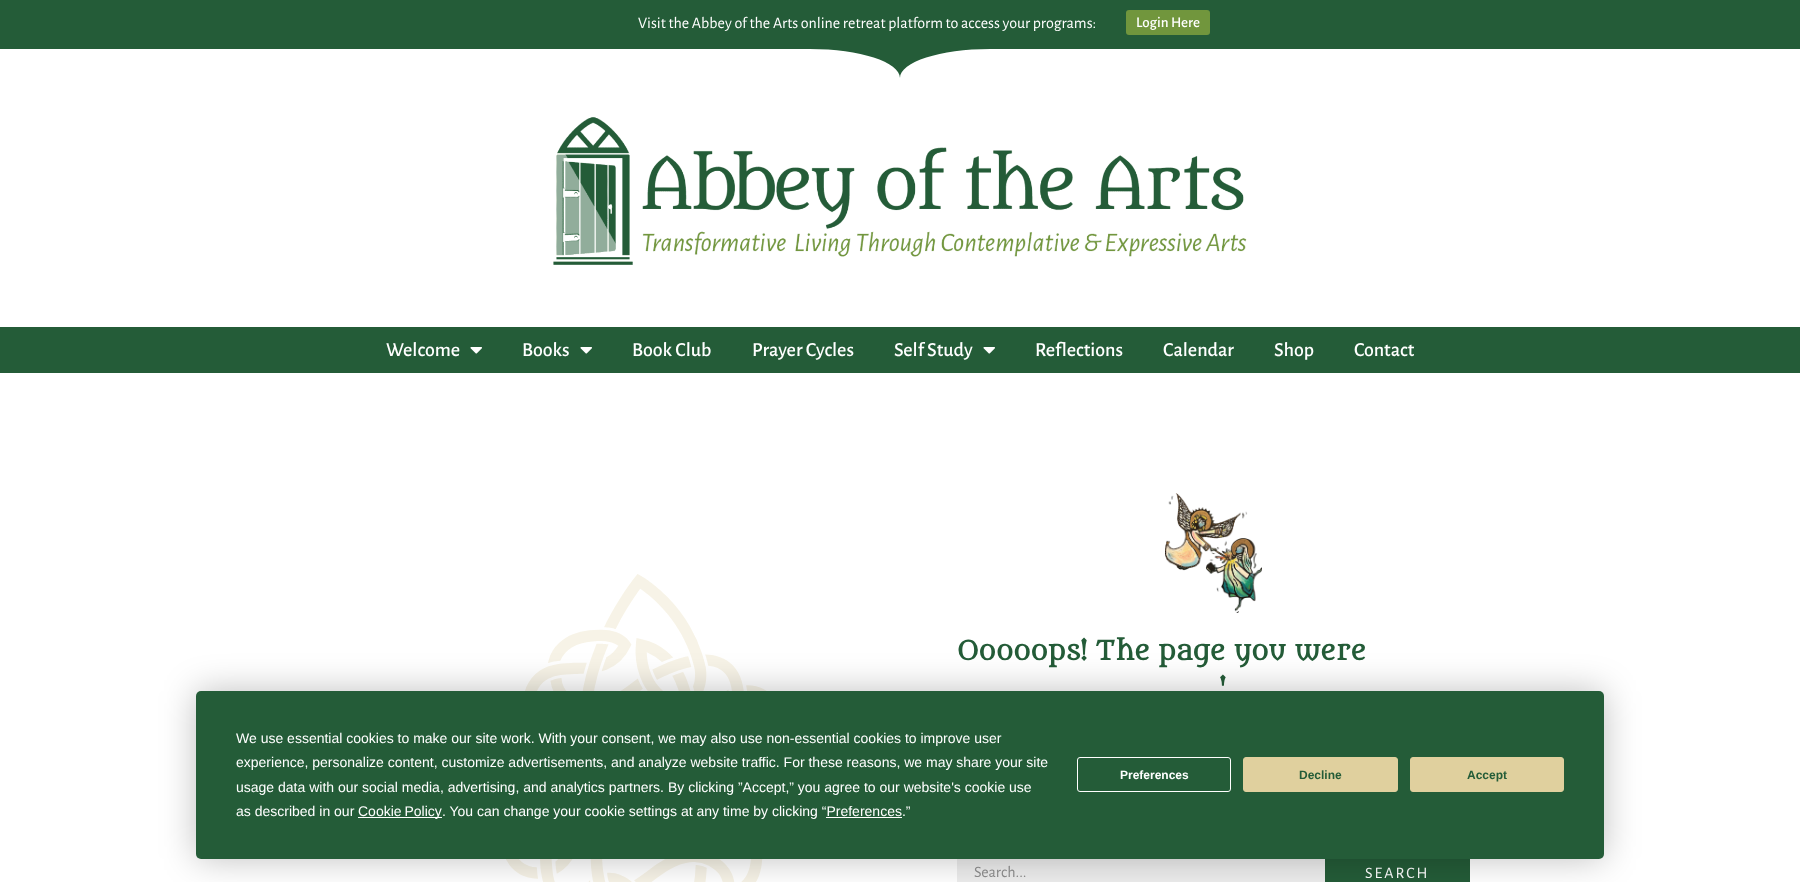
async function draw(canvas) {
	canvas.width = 1800;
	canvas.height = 882;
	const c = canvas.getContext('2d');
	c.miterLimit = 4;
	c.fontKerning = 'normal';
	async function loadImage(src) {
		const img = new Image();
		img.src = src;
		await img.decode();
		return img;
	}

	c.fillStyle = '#fff';
	c.fillRect(0, 0, 1800, 882);
	c.fillStyle = '#245c38';
	c.fillRect(0, 0, 1800, 44);
	c.font = '16px Alegreya Sans';
	c.fillStyle = '#fff';
	c.fillText('Visit the Abbey of the Arts online retreat platform to access your programs:', 638, 28);
	c.fillStyle = '#71963d';
	c.beginPath();
	c.roundRect(1126, 10, 84, 25, 3);
	c.fill();
	c.font = '500 15px Alegreya Sans';
	c.fillStyle = '#fff';
	c.fillText('Login Here', 1136, 27);
	c.fillStyle = '#245c38';
	c.beginPath();
	c.moveTo(-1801, 44);
	c.lineTo(-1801, 49);
	c.lineTo(810, 49);
	c.bezierCurveTo(860, 49, 900, 62, 900, 78);
	c.bezierCurveTo(900, 62, 940, 49, 990, 49);
	c.lineTo(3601, 49);
	c.lineTo(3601, 44);
	c.closePath();
	c.fill();
	c.drawImage(await loadImage('img1.png'), 553, 117, 694, 148);
	c.fillRect(0, 327, 1800, 46);
	c.font = '500 20px Alegreya Sans';
	c.fillStyle = '#fff';
	c.fillText('Welcome', 386, 356);
	c.drawImage(await loadImage('img2.png'), 470, 347, 12, 7);
	c.fillText('Books', 522, 356);
	c.drawImage(await loadImage('img2.png'), 580, 347, 12, 7);
	for (const [text, x, y] of [
		['Book Club', 632, 356],
		['Prayer Cycles', 752, 356],
		['Self Study', 894, 356],
	]) {
		c.fillText(text, x, y);
	}
	c.drawImage(await loadImage('img2.png'), 983, 347, 12, 7);
	for (const [text, x, y] of [
		['Reflections', 1035, 356],
		['Calendar', 1163, 356],
		['Shop', 1274, 356],
		['Contact', 1354, 356],
	]) {
		c.fillText(text, x, y);
	}
	c.drawImage(await loadImage('img3.png'), 506, 574, 261, 308);
	c.drawImage(await loadImage('img4.png'), 1165, 493, 97, 120);
	c.font = 'bold 26px Metamorphous';
	c.fillStyle = '#245c38';
	c.fillText('Ooooops! The page you were', 957, 660);
	c.fillText('\'', 1219, 697);
	c.fillStyle = '#ededed';
	c.fillRect(957, 859, 368, 23);
	c.font = '16px Alegreya Sans';
	c.fillStyle = '#8e8e8e';
	c.fillText('Search...', 974, 877);
	c.fillStyle = '#245c38';
	c.fillRect(1325, 859, 145, 23);
	c.letterSpacing = '2px';
	c.fillStyle = '#fff';
	c.fillText('SEARCH', 1365, 878);
	c.fillStyle = '#00000040';
	c.filter = 'blur(17.5px)';
	c.beginPath();
	c.roundRect(196, 691, 1408, 168, 5);
	c.fill();
	c.filter = 'none';
	c.fillStyle = '#245c38';
	c.beginPath();
	c.roundRect(196, 691, 1408, 168, 5);
	c.fill();
	c.letterSpacing = '0px';
	c.font = '14px Liberation Sans';
	c.fillStyle = '#fff';
	for (const [text, x, y] of [
		['We use essential cookies to make our site work. With your consent, we may also use non-essential cookies to improve user', 236, 743],
		['experience, personalize content, customize advertisements, and analyze website traffic. For these reasons, we may share your site', 236, 767],
		['usage data with our social media, advertising, and analytics partners. By clicking ”Accept,” you agree to our website\'s cookie use', 236, 792],
		['as described in our', 236, 816],
	]) {
		c.fillText(text, x, y);
	}
	c.fillRect(358, 817, 84, 1);
	c.wordSpacing = '-1px';
	c.fillText('Cookie Policy', 358, 816);
	c.wordSpacing = '0px';
	c.fillText('. You can change your cookie settings at any time by clicking “Preferences.”', 442, 816);
	c.fillRect(826, 817, 76, 1);
	c.beginPath();
	c.roundRect(1077.5, 757.5, 153, 34, 2.5);
	c.strokeStyle = '#fff';
	c.stroke();
	c.font = 'bold 12px Liberation Sans';
	c.fillText('Preferences', 1120, 779);
	c.fillStyle = '#e0d09e';
	c.beginPath();
	c.roundRect(1243.5, 757.5, 154, 34, 2.5);
	c.fill();
	c.strokeStyle = '#e0d09e';
	c.stroke();
	c.fillStyle = '#245c38';
	c.fillText('Decline', 1299, 779);
	c.fillStyle = '#e0d09e';
	c.beginPath();
	c.roundRect(1410.5, 757.5, 153, 34, 2.5);
	c.fill();
	c.stroke();
	c.fillStyle = '#245c38';
	c.fillText('Accept', 1467, 779);
}

draw(document.querySelector('canvas'));
